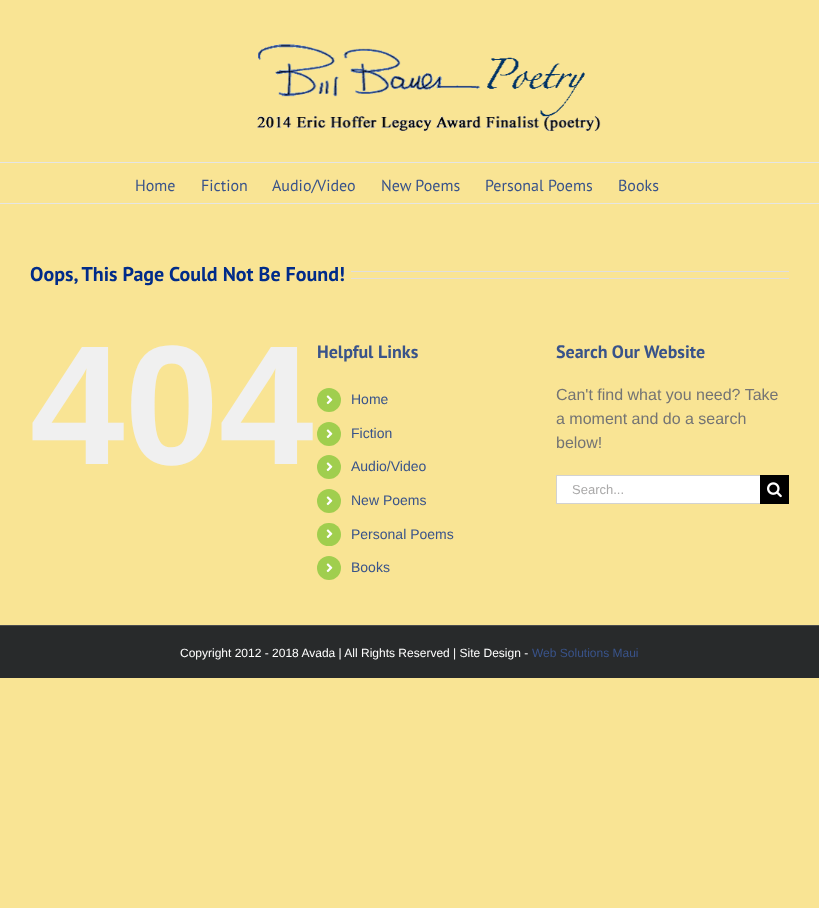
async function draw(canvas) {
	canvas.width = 819;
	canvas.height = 908;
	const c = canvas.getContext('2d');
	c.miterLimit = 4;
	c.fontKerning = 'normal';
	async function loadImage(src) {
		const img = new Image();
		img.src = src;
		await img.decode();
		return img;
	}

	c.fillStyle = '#f9e494';
	c.fillRect(0, 0, 819, 908);
	c.fillStyle = '#e5e5e5';
	c.fillRect(0, 162, 819, 1);
	c.drawImage(await loadImage('img1.png'), 257, 44, 344, 87);
	c.fillRect(0, 203, 819, 1);
	c.font = '16px PT Sans';
	c.fillStyle = '#39538a';
	for (const [text, x, y] of [
		['Home', 135, 191],
		['Fiction', 201, 191],
		['Audio/Video', 272, 191],
		['New Poems', 381, 191],
		['Personal Poems', 485, 191],
		['Books', 618, 191],
	]) {
		c.fillText(text, x, y);
	}
	c.font = 'bold 20px PT Sans';
	c.fillStyle = '#002b89';
	c.fillText('Oops, This Page Could Not Be Found!', 30, 281);
	c.fillStyle = '#e0dede';
	c.fillRect(351, 271, 438, 1);
	c.fillRect(351, 278, 438, 1);
	c.font = 'bold 170px Liberation Sans';
	c.fillStyle = '#f0f0f0';
	c.fillText('404', 30, 464);
	c.font = 'bold 18px PT Sans';
	c.fillStyle = '#39538a';
	c.fillText('Helpful Links', 317, 358);
	c.fillStyle = '#a0ce4e';
	c.beginPath();
	c.arc(329, 400, 12, 0, 2 * Math.PI);
	c.fill();
	c.drawImage(await loadImage('img2.png'), 326, 395, 7, 10);
	c.font = '14px Liberation Sans';
	c.fillStyle = '#39538a';
	c.fillText('Home', 351, 404);
	c.fillStyle = '#a0ce4e';
	c.beginPath();
	c.arc(329, 434, 12, 0, 2 * Math.PI);
	c.fill();
	c.drawImage(await loadImage('img2.png'), 326, 429, 7, 10);
	c.fillStyle = '#39538a';
	c.fillText('Fiction', 351, 438);
	c.fillStyle = '#a0ce4e';
	c.beginPath();
	c.arc(329, 467, 12, 0, 2 * Math.PI);
	c.fill();
	c.drawImage(await loadImage('img2.png'), 326, 462, 7, 10);
	c.fillStyle = '#39538a';
	c.fillText('Audio/Video', 351, 471);
	c.fillStyle = '#a0ce4e';
	c.beginPath();
	c.arc(329, 501, 12, 0, 2 * Math.PI);
	c.fill();
	c.drawImage(await loadImage('img2.png'), 326, 496, 7, 10);
	c.fillStyle = '#39538a';
	c.fillText('New Poems', 351, 505);
	c.fillStyle = '#a0ce4e';
	c.beginPath();
	c.roundRect(317, 523, 24, 23, 11.5);
	c.fill();
	c.drawImage(await loadImage('img2.png'), 326, 529, 7, 10);
	c.fillStyle = '#39538a';
	c.fillText('Personal Poems', 351, 539);
	c.fillStyle = '#a0ce4e';
	c.beginPath();
	c.arc(329, 568, 12, 0, 2 * Math.PI);
	c.fill();
	c.drawImage(await loadImage('img2.png'), 326, 563, 7, 10);
	c.fillStyle = '#39538a';
	c.fillText('Books', 351, 572);
	c.font = 'bold 18px PT Sans';
	c.fillText('Search Our Website', 556, 358);
	c.font = '16px Liberation Sans';
	c.fillStyle = '#747474';
	for (const [text, x, y] of [
		['Can\'t find what you need? Take', 556, 400],
		['a moment and do a search', 556, 424],
		['below!', 556, 448],
	]) {
		c.fillText(text, x, y);
	}
	for (const [x, y, w, h, color] of [
		[557, 476, 203, 27, '#fff'],
		[556, 475, 204, 1, '#d2d2d2'],
		[556, 503, 204, 1, '#d2d2d2'],
		[556, 475, 1, 29, '#d2d2d2'],
	]) {
		c.fillStyle = color;
		c.fillRect(x, y, w, h);
	}
	c.font = '13px Liberation Sans';
	c.fillStyle = '#aaa9a9';
	c.fillText('Search...', 572, 494);
	c.fillStyle = '#000';
	c.fillRect(760, 475, 29, 29);
	c.drawImage(await loadImage('img3.png'), 767, 482, 15, 16);
	c.fillStyle = '#282a2b';
	c.fillRect(0, 626, 819, 52);
	c.fillStyle = '#4b4c4d';
	c.fillRect(0, 625, 819, 1);
	c.font = '12px Liberation Sans';
	c.fillStyle = '#fff';
	c.fillText('Copyright 2012 - 2018 Avada | All Rights Reserved | Site Design -', 180, 657);
	c.fillStyle = '#39538a';
	c.fillText('Web Solutions Maui', 532, 657);
}

draw(document.querySelector('canvas'));
